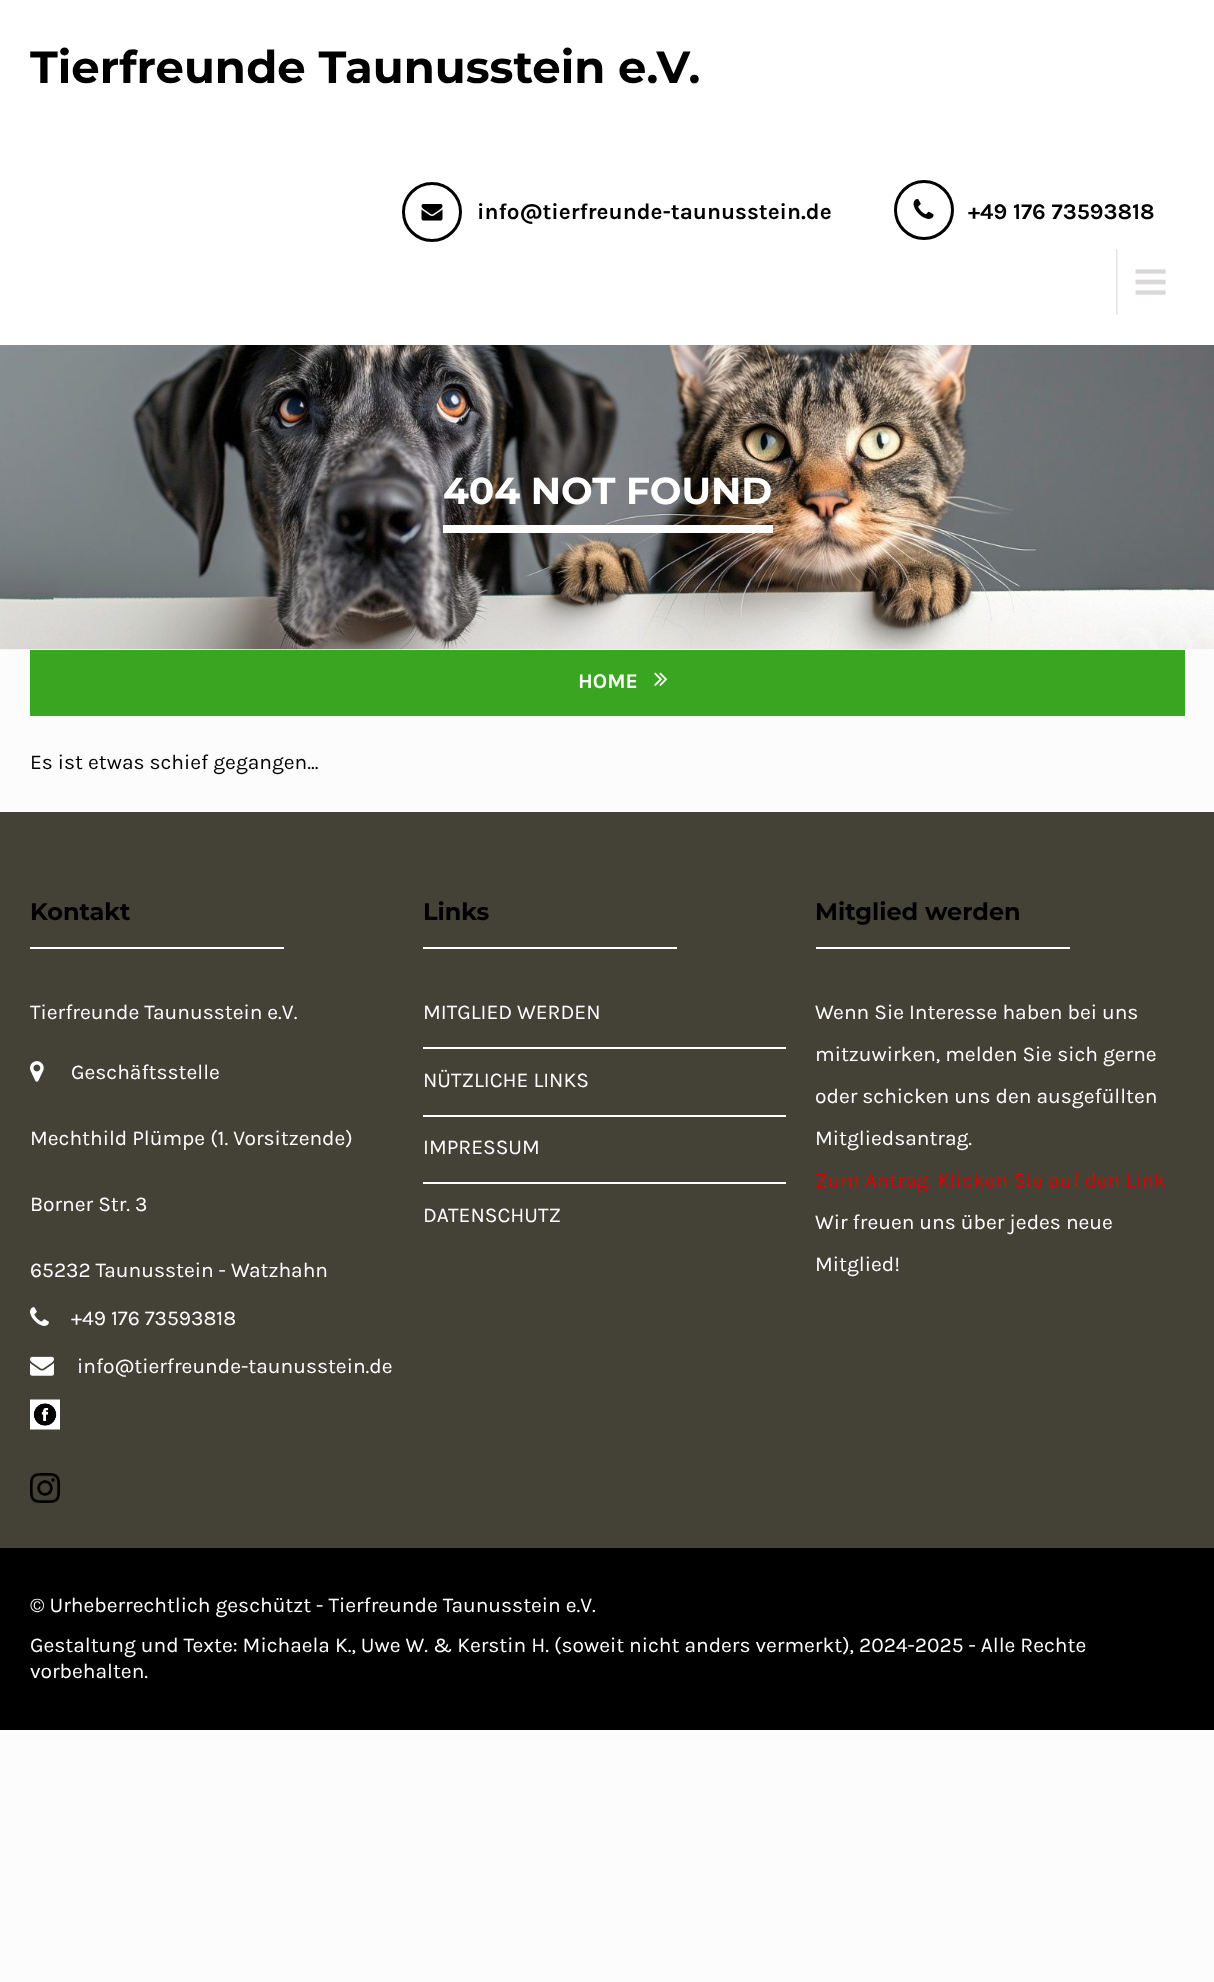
async function draw(canvas) {
	canvas.width = 1214;
	canvas.height = 1982;
	const c = canvas.getContext('2d');
	c.miterLimit = 4;
	c.fontKerning = 'normal';
	async function loadImage(src) {
		const img = new Image();
		img.src = src;
		await img.decode();
		return img;
	}

	c.fillStyle = '#fcfcfc';
	c.fillRect(0, 0, 1214, 1982);
	c.fillStyle = '#fff';
	c.fillRect(0, 0, 1214, 345);
	c.font = 'bold 45px Montserrat';
	c.fillStyle = '#000';
	c.fillText('Tierfreunde Taunusstein e.V.', 30, 83);
	c.beginPath();
	c.arc(432, 212, 28.5, 0, 2 * Math.PI);
	c.strokeStyle = '#000';
	c.lineWidth = 3;
	c.stroke();
	c.drawImage(await loadImage('img1.png'), 421, 204, 22, 17);
	c.font = 'bold 22.5px Karla';
	c.fillText('info@tierfreunde-taunusstein.de', 477, 219);
	c.beginPath();
	c.arc(924, 210, 28.5, 0, 2 * Math.PI);
	c.stroke();
	c.drawImage(await loadImage('img2.png'), 913, 199, 21, 20);
	c.fillText('+49 176 73593818', 968, 219);
	c.drawImage(await loadImage('img3.png'), 1116, 249, 50, 66);
	c.drawImage(await loadImage('img4.png'), 0, 345, 1214, 305);
	c.fillStyle = '#fff';
	c.fillRect(443, 525, 330, 8);
	c.font = 'bold 37.5px Montserrat';
	c.fillText('404 NOT FOUND', 443, 504);
	c.fillStyle = '#39a521';
	c.fillRect(30, 650, 1155, 66);
	c.font = 'bold 21px Karla';
	c.fillStyle = '#fff';
	c.fillText('HOME', 578, 688);
	c.drawImage(await loadImage('img5.png'), 654, 672, 14, 14);
	c.font = '21px Karla';
	c.fillStyle = '#000';
	c.fillText('Es ist etwas schief gegangen...', 30, 769);
	c.fillStyle = '#444137';
	c.fillRect(0, 812, 1214, 736);
	c.font = 'bold 24px Montserrat';
	c.fillStyle = '#000';
	c.fillText('Kontakt', 30, 920);
	c.fillStyle = '#fff';
	c.fillRect(30, 947, 254, 2);
	c.font = '21px Karla';
	c.fillText('Tierfreunde Taunusstein e.V.', 30, 1019);
	c.drawImage(await loadImage('img6.png'), 30, 1061, 14, 21);
	for (const [text, x, y] of [
		['Geschäftsstelle', 71, 1079],
		['Mechthild Plümpe (1. Vorsitzende)', 30, 1145],
		['Borner Str. 3', 30, 1211],
		['65232 Taunusstein - Watzhahn', 30, 1277],
	]) {
		c.fillText(text, x, y);
	}
	c.drawImage(await loadImage('img7.png'), 30, 1307, 19, 19);
	c.fillText('+49 176 73593818', 71, 1325);
	c.drawImage(await loadImage('img8.png'), 30, 1356, 24, 20);
	c.fillText('info@tierfreunde-taunusstein.de', 77, 1373);
	c.drawImage(await loadImage('img9.png'), 30, 1399, 30, 31);
	c.drawImage(await loadImage('img10.png'), 30, 1473, 30, 30);
	c.font = 'bold 24px Montserrat';
	c.fillStyle = '#000';
	c.fillText('Links', 423, 920);
	c.fillStyle = '#fff';
	c.fillRect(423, 947, 254, 2);
	c.fillRect(423, 1047, 363, 2);
	c.font = '21px Karla';
	c.fillText('MITGLIED WERDEN', 423, 1019);
	c.fillRect(423, 1115, 363, 2);
	c.fillText('NÜTZLICHE LINKS', 423, 1087);
	c.fillRect(423, 1182, 363, 2);
	c.fillText('IMPRESSUM', 423, 1154);
	c.fillText('DATENSCHUTZ', 423, 1222);
	c.font = 'bold 24px Montserrat';
	c.fillStyle = '#000';
	c.fillText('Mitglied werden', 815, 920);
	c.fillStyle = '#fff';
	c.fillRect(816, 947, 254, 2);
	c.font = '21px Karla';
	for (const [text, x, y] of [
		['Wenn Sie Interesse haben bei uns', 815, 1019],
		['mitzuwirken, melden Sie sich gerne', 815, 1061],
		['oder schicken uns den ausgefüllten', 815, 1103],
		['Mitgliedsantrag.', 815, 1145],
	]) {
		c.fillText(text, x, y);
	}
	c.fillStyle = '#d00';
	c.fillText('Zum Antrag. Klicken Sie auf den Link', 815, 1187);
	c.fillStyle = '#fff';
	c.fillText('Wir freuen uns über jedes neue', 815, 1229);
	c.fillText('Mitglied!', 815, 1271);
	c.fillStyle = '#000';
	c.fillRect(0, 1548, 1214, 182);
	c.fillStyle = '#fff';
	for (const [text, x, y] of [
		['© Urheberrechtlich geschützt - Tierfreunde Taunusstein e.V.', 30, 1612],
		['Gestaltung und Texte: Michaela K., Uwe W. & Kerstin H. (soweit nicht anders vermerkt), 2024-2025 - Alle Rechte', 30, 1652],
		['vorbehalten.', 30, 1678],
	]) {
		c.fillText(text, x, y);
	}
}

draw(document.querySelector('canvas'));
